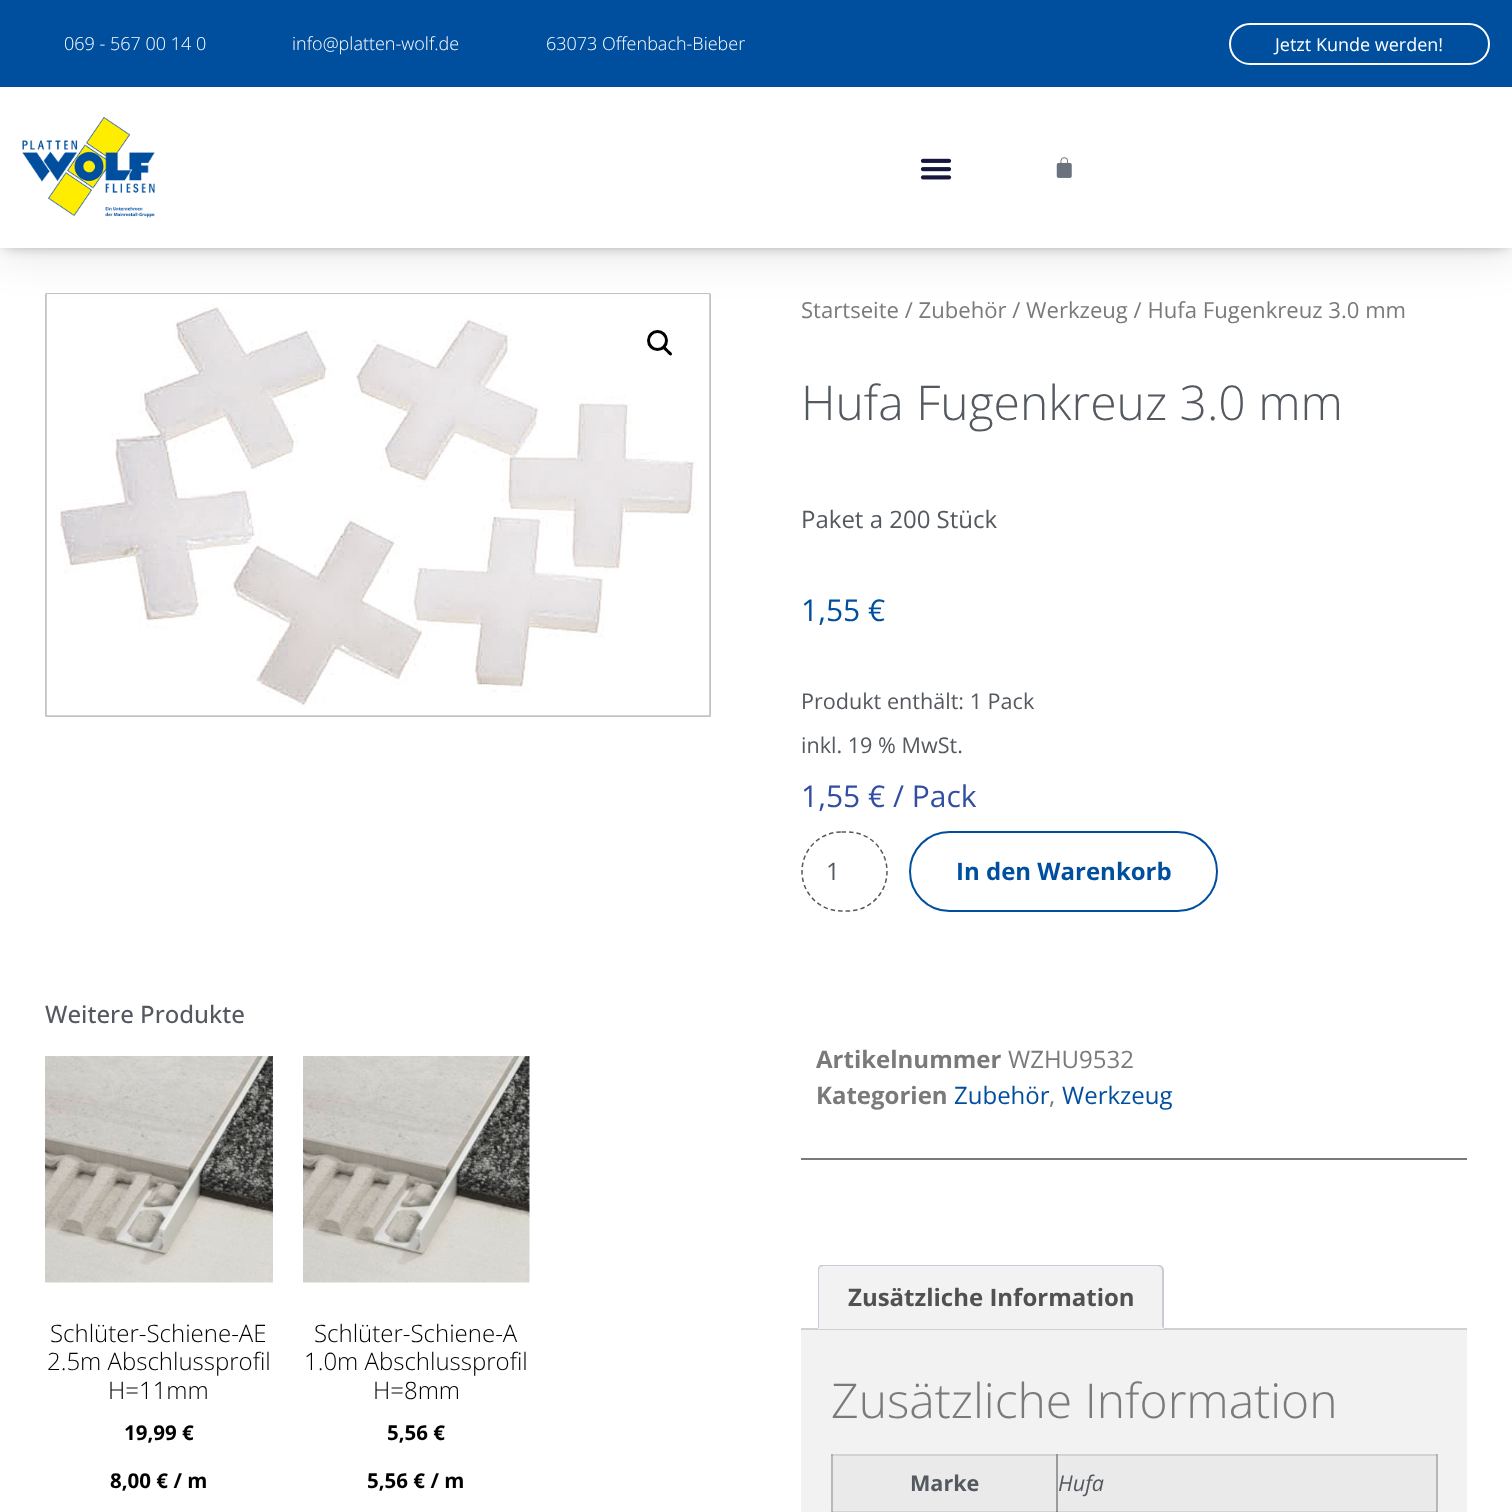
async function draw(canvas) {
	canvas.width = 1512;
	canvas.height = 1512;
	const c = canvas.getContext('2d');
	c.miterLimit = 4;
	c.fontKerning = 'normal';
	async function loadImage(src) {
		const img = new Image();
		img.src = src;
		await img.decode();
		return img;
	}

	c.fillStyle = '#fff';
	c.fillRect(0, 0, 1512, 1512);
	c.beginPath();
	c.roundRect(46, 294, 664, 422, 0.5);
	c.strokeStyle = '#c2c2c2';
	c.lineWidth = 2;
	c.stroke();
	c.drawImage(await loadImage('img4.png'), 46, 294, 664, 422);
	c.fillStyle = '#0000001a';
	c.filter = 'blur(22.5px)';
	c.beginPath();
	c.rect(0, 8, 1512, 247);
	c.fill();
	c.filter = 'none';
	c.fillStyle = '#00000080';
	c.filter = 'blur(7.5px)';
	c.beginPath();
	c.rect(5, 92, 1503, 151);
	c.fill();
	c.filter = 'none';
	c.fillStyle = '#004f9e';
	c.fillRect(0, 0, 1512, 87);
	c.font = '300 18px Open Sans';
	c.fillStyle = '#fff';
	for (const [text, x, y] of [
		['069 - 567 00 14 0', 64, 50],
		['info@platten-wolf.de', 292, 50],
		['63073 Offenbach-Bieber', 546, 50],
	]) {
		c.fillText(text, x, y);
	}
	c.beginPath();
	c.roundRect(1230, 24, 259, 40, 20);
	c.strokeStyle = '#fff';
	c.stroke();
	c.font = '18px Open Sans';
	c.fillText('Jetzt Kunde werden!', 1275, 51);
	c.fillRect(0, 87, 1512, 161);
	c.drawImage(await loadImage('img1.png'), 22, 117, 133, 101);
	c.drawImage(await loadImage('img2.png'), 920, 158, 32, 22);
	c.drawImage(await loadImage('img3.png'), 1056, 157, 16, 21);
	c.beginPath();
	c.arc(657.5, 340.5, 9, 0, 2 * Math.PI);
	c.strokeStyle = '#000';
	c.lineWidth = 3;
	c.stroke();
	c.fillStyle = '#000';
	c.beginPath();
	c.moveTo(663.5, 347);
	c.bezierCurveTo(665, 345, 667.5, 349, 668.5, 350);
	c.bezierCurveTo(669.5, 351, 673.5, 353.5, 671.5, 355);
	c.bezierCurveTo(670, 357, 667.5, 353, 666.5, 352);
	c.bezierCurveTo(665.5, 351, 661.5, 348.5, 663.5, 347);
	c.closePath();
	c.fill();
	c.font = '22.1px Open Sans';
	c.fillStyle = '#7a7a7a';
	c.fillText('Startseite / Zubehör / Werkzeug / Hufa Fugenkreuz 3.0 mm', 801, 318);
	c.font = '300 48px Open Sans';
	c.fillStyle = '#54595f';
	c.fillText('Hufa Fugenkreuz 3.0 mm', 801, 420);
	c.font = '24px Open Sans';
	c.fillText('Paket a 200 Stück', 801, 528);
	c.font = '30px Open Sans';
	c.fillStyle = '#004f9e';
	c.fillText('1,55 €', 801, 621);
	c.font = '21.6px Open Sans';
	c.fillStyle = '#54595f';
	c.fillText('Produkt enthält: 1 Pack', 801, 709);
	c.fillText('inkl. 19 % MwSt.', 801, 753);
	c.font = '30px Open Sans';
	c.fillStyle = '#314ea3';
	c.fillText('1,55 € / Pack', 801, 807);
	c.beginPath();
	c.moveTo(841.5, 832);
	c.lineTo(847.5, 832);
	c.bezierCurveTo(869.5, 832, 887, 849.5, 887, 871.5);
	c.bezierCurveTo(887, 893.5, 869.5, 911, 847.5, 911);
	c.lineTo(841.5, 911);
	c.bezierCurveTo(819.5, 911, 802, 893.5, 802, 871.5);
	c.bezierCurveTo(802, 849.5, 819.5, 832, 841.5, 832);
	c.closePath();
	c.strokeStyle = '#54595f';
	c.lineWidth = 1.5;
	c.setLineDash([4.5, 3]);
	c.stroke();
	c.font = '24px Open Sans';
	c.fillStyle = '#54595f';
	c.fillText('1', 826, 880);
	c.beginPath();
	c.roundRect(910, 832, 307, 79, 39.5);
	c.strokeStyle = '#004f9e';
	c.lineWidth = 2;
	c.setLineDash([]);
	c.stroke();
	c.font = 'bold 24px Open Sans';
	c.fillStyle = '#004f9e';
	c.fillText('In den Warenkorb', 956, 880);
	c.font = '500 24px Open Sans';
	c.fillStyle = '#54595f';
	c.fillText('Weitere Produkte', 45, 1023);
	c.drawImage(await loadImage('img5.png'), 45, 1056, 228, 227);
	c.font = '300 24px Open Sans';
	c.fillStyle = '#000';
	for (const [text, x, y] of [
		['Schlüter-Schiene-AE', 50, 1342],
		['2.5m Abschlussprofil', 47, 1370],
		['H=11mm', 108, 1399],
	]) {
		c.fillText(text, x, y);
	}
	c.font = 'bold 20.5px Open Sans';
	c.fillText('19,99 €', 124, 1440);
	c.fillText('8,00 € / m', 110, 1488);
	c.drawImage(await loadImage('img6.png'), 303, 1056, 227, 227);
	c.font = '300 24px Open Sans';
	for (const [text, x, y] of [
		['Schlüter-Schiene-A', 314, 1342],
		['1.0m Abschlussprofil', 304, 1370],
		['H=8mm', 373, 1399],
	]) {
		c.fillText(text, x, y);
	}
	c.font = 'bold 20.5px Open Sans';
	c.fillText('5,56 €', 387, 1440);
	c.fillText('5,56 € / m', 367, 1488);
	c.fillStyle = '#7a7a7a';
	c.fillRect(801, 1158, 666, 2);
	c.font = 'bold 24px Open Sans';
	c.fillText('Artikelnummer', 816, 1068);
	c.font = '24px Open Sans';
	c.fillText('WZHU9532', 1008, 1068);
	c.font = 'bold 24px Open Sans';
	c.fillText('Kategorien', 816, 1104);
	c.font = '24px Open Sans';
	c.fillStyle = '#004f9e';
	c.fillText('Zubehör', 954, 1104);
	c.fillStyle = '#7a7a7a';
	c.fillText(',', 1049, 1104);
	c.fillStyle = '#004f9e';
	c.fillText('Werkzeug', 1062, 1104);
	c.fillStyle = '#d3ced2';
	c.fillRect(801, 1328, 666, 2);
	c.fillStyle = '#f2f2f2';
	c.beginPath();
	c.roundRect(818, 1265, 346, 64, [6, 6, 0, 0]);
	c.fill();
	c.save();
	c.beginPath();
	c.rect(801, 1265, 666, 64);
	c.clip();
	c.fillStyle = '#cfc8d8';
	c.beginPath();
	c.moveTo(824, 1266);
	c.bezierCurveTo(822, 1266, 821, 1267, 820, 1267);
	c.lineTo(819, 1266);
	c.lineTo(821, 1264);
	c.lineTo(1160, 1265);
	c.lineTo(1162, 1266);
	c.lineTo(1161, 1268);
	c.bezierCurveTo(1160, 1267, 1159, 1266, 1158, 1266);
	c.closePath();
	c.fill();
	c.restore();
	c.fillStyle = '#cfc8d8';
	c.beginPath();
	c.moveTo(1164, 1329);
	c.lineTo(1164, 1270);
	c.bezierCurveTo(1164, 1269, 1163, 1267, 1162, 1266);
	c.lineTo(1161, 1268);
	c.lineTo(1162, 1270);
	c.lineTo(1162, 1327);
	c.closePath();
	c.fill();
	c.fillStyle = '#f2f2f2';
	c.beginPath();
	c.moveTo(1164, 1329);
	c.lineTo(1162, 1327);
	c.lineTo(1162, 1328);
	c.lineTo(819, 1328);
	c.lineTo(818, 1329);
	c.closePath();
	c.fill();
	c.fillStyle = '#cfc8d8';
	c.beginPath();
	c.moveTo(818, 1328);
	c.lineTo(818, 1270);
	c.bezierCurveTo(818, 1269, 818, 1267, 819, 1266);
	c.lineTo(820, 1267);
	c.lineTo(819, 1270);
	c.lineTo(819, 1328);
	c.closePath();
	c.fill();
	c.font = 'bold 24px Open Sans';
	c.fillStyle = '#515151';
	c.fillText('Zusätzliche Information', 848, 1306);
	for (const [x, y, w, h, color] of [
		[801, 1330, 666, 182, '#f2f2f2'],
		[831, 1454, 2, 58, '#b9b9b9'],
		[831, 1511, 2, 1, '#adadad'],
		[1437, 1454, 1, 58, '#b9b9b9'],
		[831, 1454, 2, 2, '#adadad'],
	]) {
		c.fillStyle = color;
		c.fillRect(x, y, w, h);
	}
	c.font = '300 48px Open Sans';
	c.fillStyle = '#7a7a7a';
	c.fillText('Zusätzliche Information', 831, 1418);
	for (const [x, y, w, h, color] of [
		[833, 1456, 223, 55, '#eaeaea'],
		[833, 1511, 604, 1, '#d3d3d3'],
		[1056, 1454, 2, 58, '#9b9b9b'],
		[1056, 1511, 2, 1, '#868686'],
		[833, 1454, 225, 2, '#d3d3d3'],
		[1056, 1454, 2, 2, '#959595'],
	]) {
		c.fillStyle = color;
		c.fillRect(x, y, w, h);
	}
	c.font = 'bold 21.6px Open Sans';
	c.fillStyle = '#54595f';
	c.fillText('Marke', 910, 1491);
	for (const [x, y, w, h, color] of [
		[1058, 1456, 378, 55, '#eaeaea'],
		[1436, 1454, 1, 58, '#b5b5b5'],
		[1436, 1511, 1, 1, '#a3a3a3'],
		[1058, 1454, 379, 2, '#d3d3d3'],
		[1436, 1454, 1, 2, '#aaa'],
	]) {
		c.fillStyle = color;
		c.fillRect(x, y, w, h);
	}
	c.font = 'italic 21.6px Open Sans';
	c.fillStyle = '#54595f';
	c.fillText('Hufa', 1058, 1491);
}

draw(document.querySelector('canvas'));
